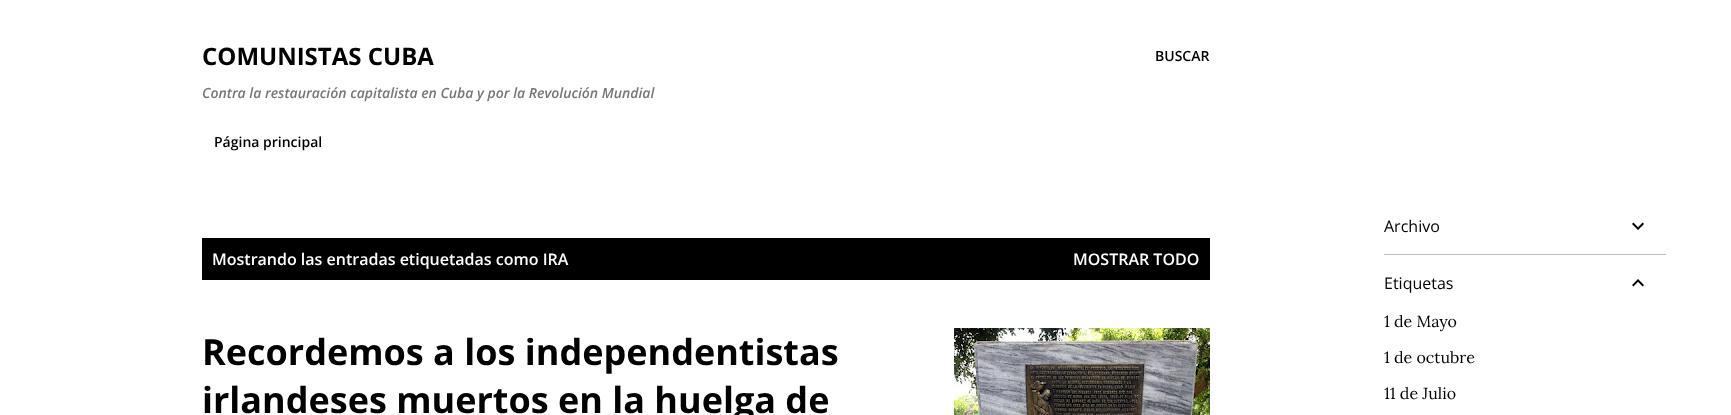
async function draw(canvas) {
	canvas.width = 1731;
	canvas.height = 415;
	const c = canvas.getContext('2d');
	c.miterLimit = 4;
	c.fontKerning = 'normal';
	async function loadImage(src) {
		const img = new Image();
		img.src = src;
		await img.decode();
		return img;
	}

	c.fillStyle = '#fff';
	c.fillRect(0, 0, 1731, 415);
	c.font = 'bold 24px Open Sans';
	c.fillStyle = '#000';
	c.fillText('COMUNISTAS CUBA', 202, 65);
	c.font = 'italic 600 14px Open Sans';
	c.fillStyle = '#767676';
	c.fillText('Contra la restauración capitalista en Cuba y por la Revolución Mundial', 202, 98);
	c.font = '600 14px Open Sans';
	c.fillStyle = '#000';
	c.fillText('BUSCAR', 1155, 61);
	c.fillText('Página principal', 214, 147);
	c.fillRect(202, 238, 1008, 42);
	c.font = '600 16px Open Sans';
	c.fillStyle = '#fff';
	c.fillText('Mostrando las entradas etiquetadas como IRA', 212, 265);
	c.fillText('MOSTRAR TODO', 1073, 265);
	c.font = 'bold 36px Open Sans';
	c.fillStyle = '#000';
	c.fillText('Recordemos a los independentistas', 202, 365);
	c.fillText('irlandeses muertos en la huelga de', 202, 413);
	c.drawImage(await loadImage('img1.png'), 954, 328, 256, 87);
	c.font = '16px Open Sans';
	c.fillText('Archivo', 1384, 232);
	c.drawImage(await loadImage('img2.png'), 1632, 222, 12, 8);
	c.fillStyle = '#bdbdbd';
	c.fillRect(1384, 254, 282, 1);
	c.fillStyle = '#000';
	c.fillText('Etiquetas', 1384, 289);
	c.drawImage(await loadImage('img3.png'), 1632, 279, 12, 8);
	c.font = '16px Lora';
	for (const [text, x, y] of [
		['1 de Mayo', 1384, 327],
		['1 de octubre', 1384, 363],
		['11 de Julio', 1384, 399],
	]) {
		c.fillText(text, x, y);
	}
}

draw(document.querySelector('canvas'));
